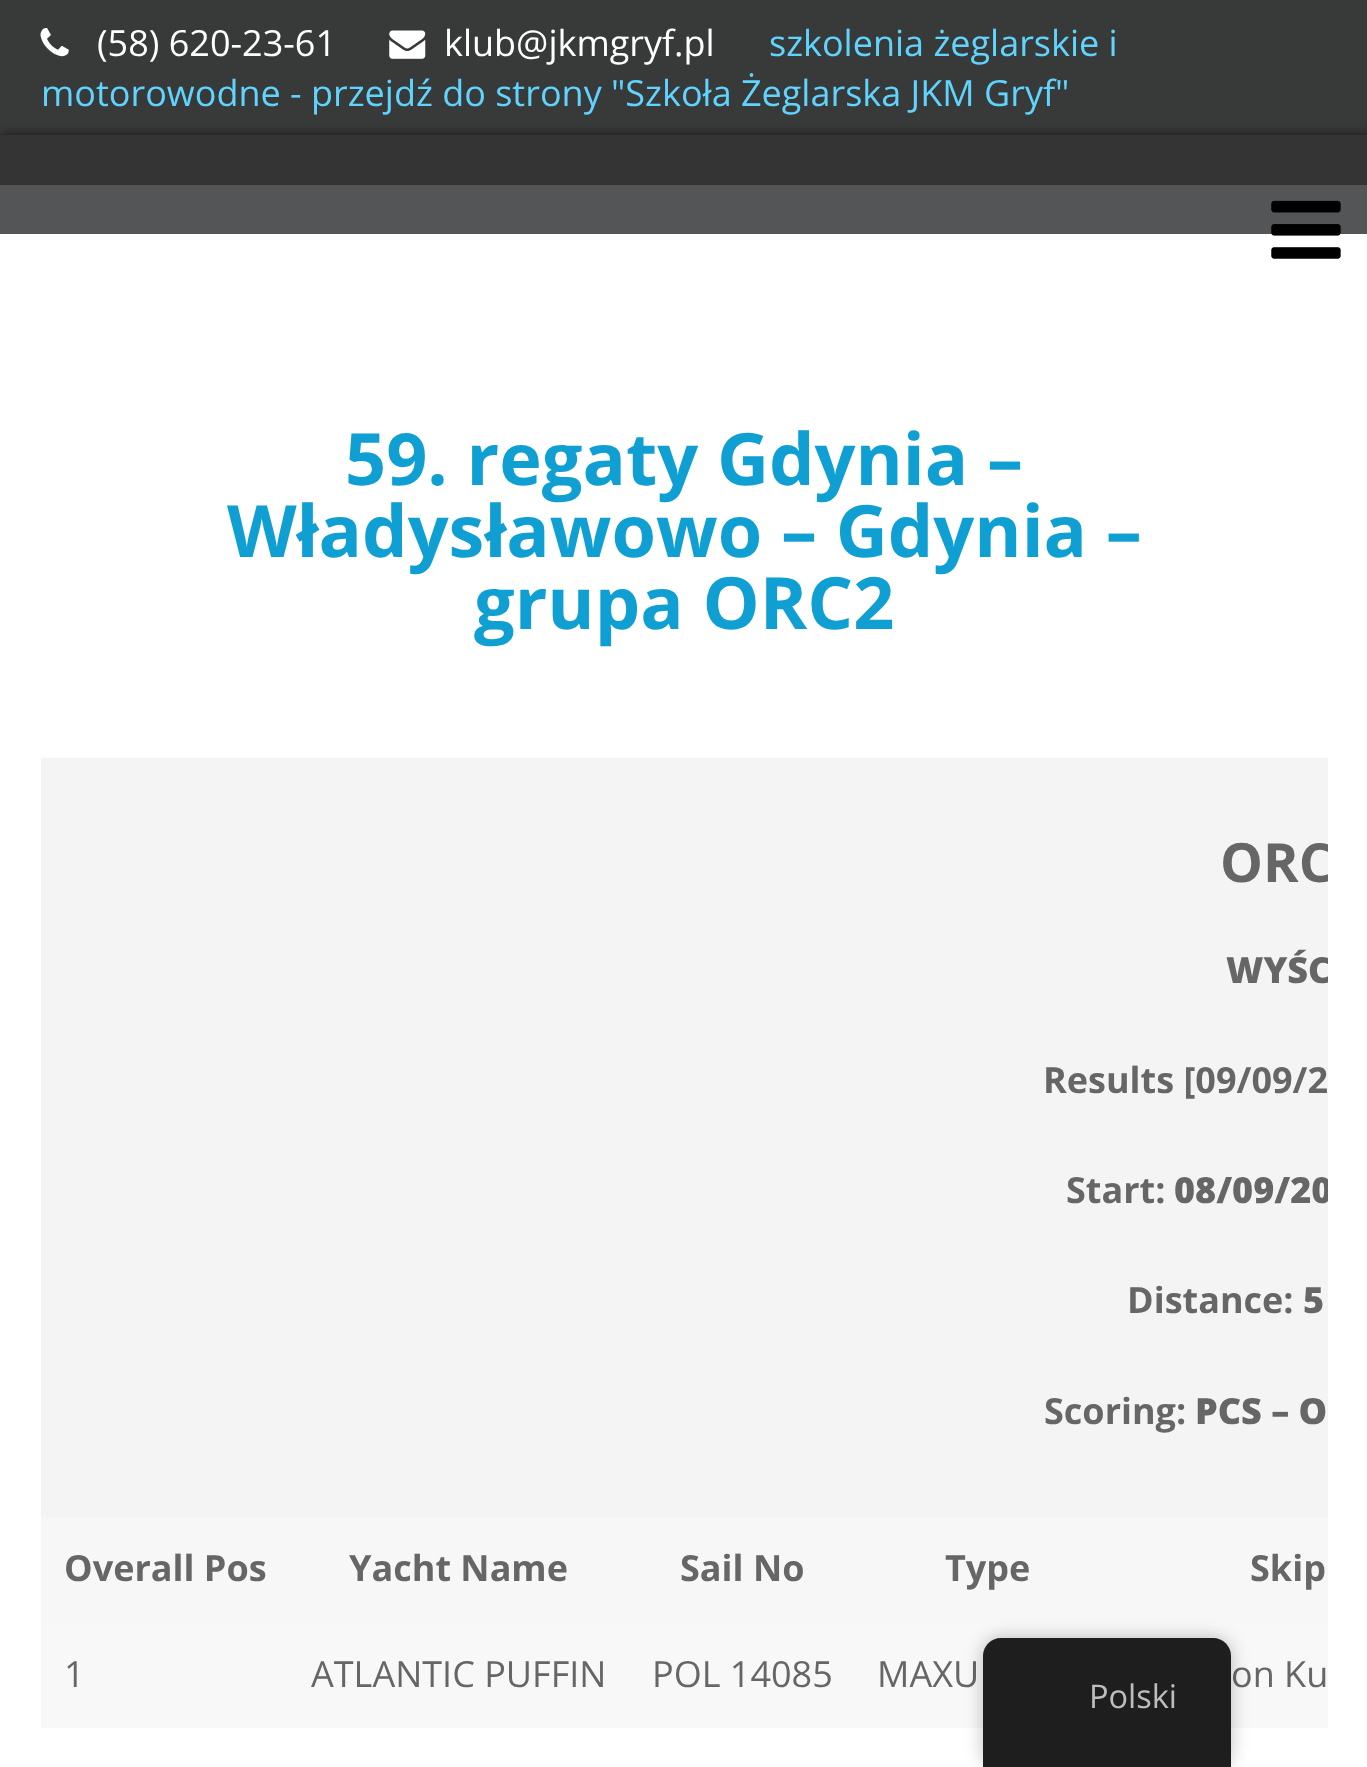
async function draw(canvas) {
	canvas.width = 1367;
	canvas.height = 1767;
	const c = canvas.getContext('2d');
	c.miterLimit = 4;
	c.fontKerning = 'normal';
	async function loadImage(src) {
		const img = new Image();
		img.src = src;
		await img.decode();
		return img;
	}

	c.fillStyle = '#fff';
	c.fillRect(0, 0, 1367, 1767);
	c.fillStyle = '#383939';
	c.fillRect(0, 0, 1367, 135);
	c.drawImage(await loadImage('img1.png'), 389, 30, 37, 29);
	c.font = '36px Open Sans';
	c.fillStyle = '#fff';
	c.fillText('klub@jkmgryf.pl', 444, 56);
	c.fillStyle = '#60d4fe';
	c.fillText('szkolenia żeglarskie i', 769, 56);
	c.fillText('motorowodne - przejdź do strony "Szkoła Żeglarska JKM Gryf"', 41, 106);
	c.drawImage(await loadImage('img2.png'), 40, 28, 29, 29);
	c.fillStyle = '#fff';
	c.fillText('(58) 620-23-61', 97, 56);
	c.save();
	c.beginPath();
	c.rect(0, 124, 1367, 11);
	c.clip();
	c.fillStyle = '#161616';
	c.filter = 'blur(5.5px)';
	c.beginPath();
	c.rect(0, 135, 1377, 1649);
	c.fill();
	c.filter = 'none';
	c.restore();
	c.fillStyle = '#343434';
	c.fillRect(0, 135, 1367, 50);
	c.fillStyle = '#545556';
	c.fillRect(0, 185, 1367, 49);
	c.drawImage(await loadImage('img3.png'), 1271, 200, 70, 59);
	c.font = 'bold 72px Open Sans';
	c.fillStyle = '#109fd3';
	for (const [text, x, y] of [
		['59. regaty Gdynia –', 345, 485],
		['Władysławowo – Gdynia –', 227, 557],
		['grupa ORC2', 474, 629],
	]) {
		c.fillText(text, x, y);
	}
	c.fillStyle = '#f4f4f4';
	c.fillRect(41, 758, 1287, 759);
	c.save();
	c.beginPath();
	c.rect(41, 758, 1287, 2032);
	c.clip();
	c.font = 'bold 54px Open Sans';
	c.fillStyle = '#666';
	c.fillText('ORC', 1220, 882);
	c.font = '800 36px Open Sans';
	c.fillText('WYŚC', 1226, 983);
	c.restore();
	c.font = 'bold 36px Open Sans';
	c.fillStyle = '#666';
	c.fillText('Results [09/09/2', 1043, 1093);
	c.fillText('Start:', 1066, 1203);
	c.save();
	c.beginPath();
	c.rect(41, 758, 1287, 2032);
	c.clip();
	c.font = '800 36px Open Sans';
	c.fillText('08/09/20', 1174, 1203);
	c.restore();
	c.fillText('Distance:', 1127, 1313);
	c.font = '800 36px Open Sans';
	c.fillText('5', 1303, 1313);
	c.font = 'bold 36px Open Sans';
	c.fillText('Scoring:', 1044, 1424);
	c.font = '800 36px Open Sans';
	c.fillText('PCS – O', 1195, 1424);
	c.fillStyle = '#f7f7f7';
	c.fillRect(41, 1517, 1287, 105);
	c.font = 'bold 36px Open Sans';
	c.fillStyle = '#666';
	for (const [text, x, y] of [
		['Overall Pos', 64, 1581],
		['Yacht Name', 349, 1581],
		['Sail No', 680, 1581],
		['Type', 945, 1581],
		['Skip', 1250, 1581],
	]) {
		c.fillText(text, x, y);
	}
	c.fillStyle = '#f8f8f8';
	c.fillRect(41, 1622, 1287, 106);
	c.font = '36px Open Sans';
	c.fillStyle = '#666';
	for (const [text, x, y] of [
		['1', 64, 1687],
		['ATLANTIC PUFFIN', 311, 1687],
		['POL 14085', 652, 1687],
		['MAXU', 877, 1687],
		['on Ku', 1231, 1687],
	]) {
		c.fillText(text, x, y);
	}
	c.fillStyle = '#00000040';
	c.filter = 'blur(9px)';
	c.beginPath();
	c.roundRect(983, 1638, 248, 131, 18);
	c.fill();
	c.filter = 'none';
	c.fillStyle = '#1e1e1e';
	c.beginPath();
	c.moveTo(1001, 1638);
	c.lineTo(1213, 1638);
	c.bezierCurveTo(1223, 1638, 1231, 1646, 1231, 1656);
	c.lineTo(1231, 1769);
	c.lineTo(983, 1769);
	c.lineTo(983, 1656);
	c.bezierCurveTo(983, 1646, 991, 1638, 1001, 1638);
	c.closePath();
	c.fill();
	c.font = '32.5px Open Sans';
	c.fillStyle = '#bdbdbd';
	c.fillText('Polski', 1089, 1708);
}

draw(document.querySelector('canvas'));
